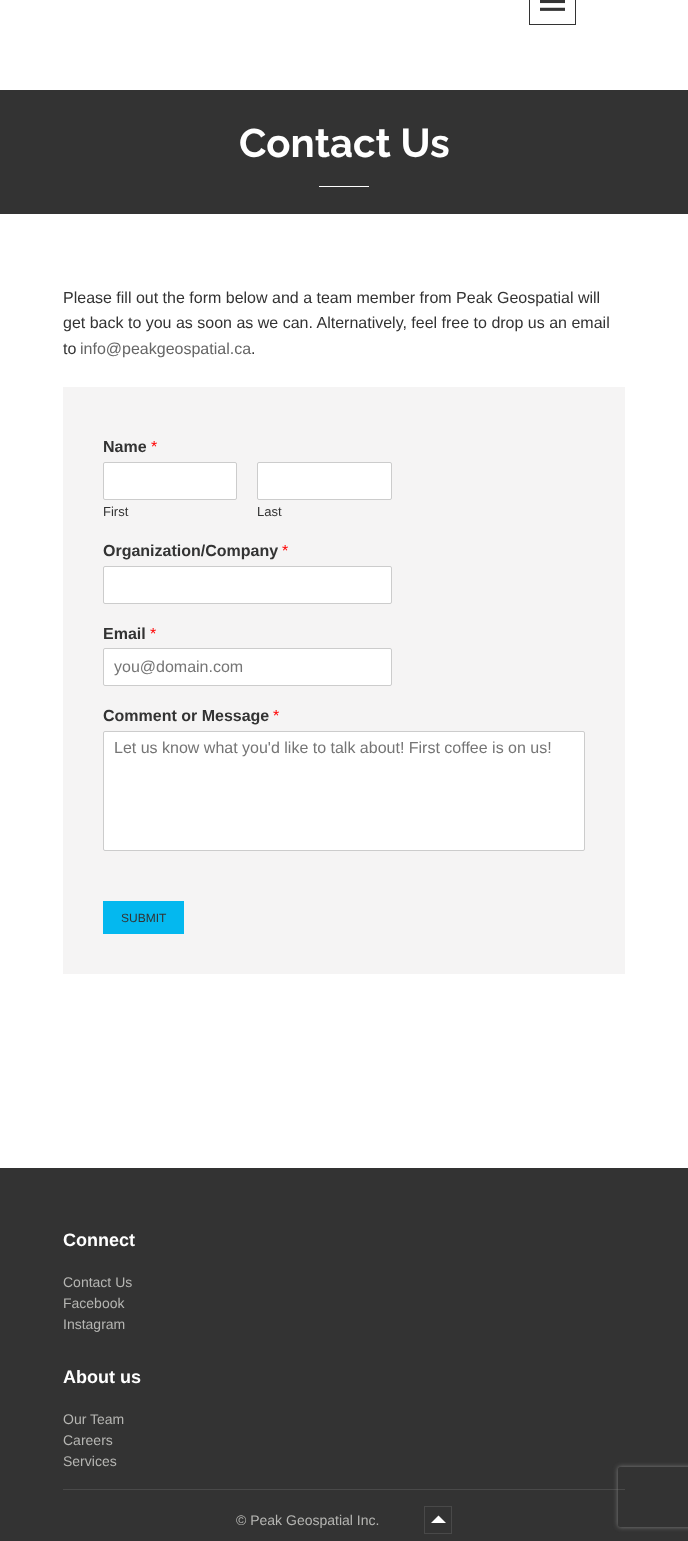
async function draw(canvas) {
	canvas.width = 688;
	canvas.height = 1541;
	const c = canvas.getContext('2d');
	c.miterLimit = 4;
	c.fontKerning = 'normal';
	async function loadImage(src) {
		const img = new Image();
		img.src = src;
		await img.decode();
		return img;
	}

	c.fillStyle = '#fff';
	c.fillRect(0, 0, 688, 1541);
	c.strokeStyle = '#333';
	c.strokeRect(529.5, -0.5, 46, 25);
	c.drawImage(await loadImage('img1.png'), 540, 0, 25, 11);
	c.fillStyle = '#333';
	c.fillRect(0, 90, 688, 124);
	c.font = 'bold 40px Raleway';
	c.fillStyle = '#fff';
	c.fillText('Contact Us', 239, 157);
	c.fillRect(319, 186, 50, 1);
	c.font = '16px Liberation Sans';
	c.fillStyle = '#333';
	for (const [text, x, y] of [
		['Please fill out the form below and a team member from Peak Geospatial will', 63, 303],
		['get back to you as soon as we can. Alternatively, feel free to drop us an email', 63, 328],
		['to', 63, 354],
	]) {
		c.fillText(text, x, y);
	}
	c.fillStyle = '#666';
	c.fillText('info@peakgeospatial.ca', 80, 354);
	c.fillStyle = '#333';
	c.fillText('.', 251, 354);
	c.fillStyle = '#f5f4f4';
	c.fillRect(63, 387, 562, 587);
	c.font = 'bold 16px Liberation Sans';
	c.fillStyle = '#333';
	c.fillText('Name', 103, 452);
	c.font = '16px Liberation Sans';
	c.fillStyle = '#f00';
	c.fillText('*', 151, 452);
	c.fillStyle = '#fff';
	c.beginPath();
	c.roundRect(103.5, 462.5, 133, 37, 1.5);
	c.fill();
	c.strokeStyle = '#ccc';
	c.stroke();
	c.font = '13px Liberation Sans';
	c.fillStyle = '#333';
	c.fillText('First', 103, 516);
	c.fillStyle = '#fff';
	c.beginPath();
	c.roundRect(257.5, 462.5, 134, 37, 1.5);
	c.fill();
	c.stroke();
	c.fillStyle = '#333';
	c.fillText('Last', 257, 516);
	c.font = 'bold 16px Liberation Sans';
	c.fillText('Organization/Company', 103, 556);
	c.font = '16px Liberation Sans';
	c.fillStyle = '#f00';
	c.fillText('*', 282, 556);
	c.fillStyle = '#fff';
	c.beginPath();
	c.roundRect(103.5, 566.5, 288, 37, 1.5);
	c.fill();
	c.stroke();
	c.font = 'bold 16px Liberation Sans';
	c.fillStyle = '#333';
	c.fillText('Email', 103, 639);
	c.font = '16px Liberation Sans';
	c.fillStyle = '#f00';
	c.fillText('*', 150, 639);
	c.fillStyle = '#fff';
	c.beginPath();
	c.roundRect(103.5, 648.5, 288, 37, 1.5);
	c.fill();
	c.stroke();
	c.fillStyle = '#757575';
	c.fillText('you@domain.com', 114, 672);
	c.font = 'bold 16px Liberation Sans';
	c.fillStyle = '#333';
	c.fillText('Comment or Message', 103, 721);
	c.font = '16px Liberation Sans';
	c.fillStyle = '#f00';
	c.fillText('*', 273, 721);
	c.fillStyle = '#fff';
	c.beginPath();
	c.roundRect(103.5, 731.5, 481, 119, 1.5);
	c.fill();
	c.stroke();
	c.fillStyle = '#757575';
	c.fillText('Let us know what you\'d like to talk about! First coffee is on us!', 114, 753);
	c.fillStyle = '#04b8ef';
	c.fillRect(103, 901, 81, 33);
	c.font = '12px Liberation Sans';
	c.fillStyle = '#333';
	c.fillText('SUBMIT', 121, 922);
	c.fillRect(0, 1168, 688, 373);
	c.font = 'bold 18px Liberation Sans';
	c.fillStyle = '#fff';
	c.fillText('Connect', 63, 1246);
	c.font = '14px Liberation Sans';
	c.fillStyle = '#b6b6b3';
	for (const [text, x, y] of [
		['Contact Us', 63, 1287],
		['Facebook', 63, 1308],
		['Instagram', 63, 1329],
	]) {
		c.fillText(text, x, y);
	}
	c.font = 'bold 18px Liberation Sans';
	c.fillStyle = '#fff';
	c.fillText('About us', 63, 1383);
	c.font = '14px Liberation Sans';
	c.fillStyle = '#b6b6b3';
	for (const [text, x, y] of [
		['Our Team', 63, 1424],
		['Careers', 63, 1445],
		['Services', 63, 1466],
	]) {
		c.fillText(text, x, y);
	}
	c.fillStyle = '#494949';
	c.fillRect(63, 1489, 562, 1);
	c.fillStyle = '#b6b6b3';
	c.fillText('© Peak Geospatial Inc.', 236, 1525);
	c.strokeStyle = '#494949';
	c.strokeRect(424.5, 1506.5, 27, 27);
	c.fillStyle = '#fff';
	c.beginPath();
	c.moveTo(446, 1523);
	c.lineTo(431, 1523);
	c.lineTo(438.5, 1515.5);
	c.closePath();
	c.fill();
	c.save();
	c.beginPath();
	c.moveTo(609, 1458);
	c.lineTo(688, 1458);
	c.lineTo(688, 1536);
	c.lineTo(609, 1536);
	c.closePath();
	c.moveTo(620, 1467);
	c.lineTo(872, 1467);
	c.bezierCurveTo(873, 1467, 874, 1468, 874, 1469);
	c.lineTo(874, 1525);
	c.bezierCurveTo(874, 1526, 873, 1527, 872, 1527);
	c.lineTo(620, 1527);
	c.bezierCurveTo(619, 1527, 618, 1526, 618, 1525);
	c.lineTo(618, 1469);
	c.bezierCurveTo(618, 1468, 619, 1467, 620, 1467);
	c.closePath();
	c.clip('evenodd');
	c.fillStyle = '#808080';
	c.filter = 'blur(2.5px)';
	c.beginPath();
	c.roundRect(618, 1467, 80, 60, 2);
	c.fill();
	c.filter = 'none';
	c.restore();
}

draw(document.querySelector('canvas'));
